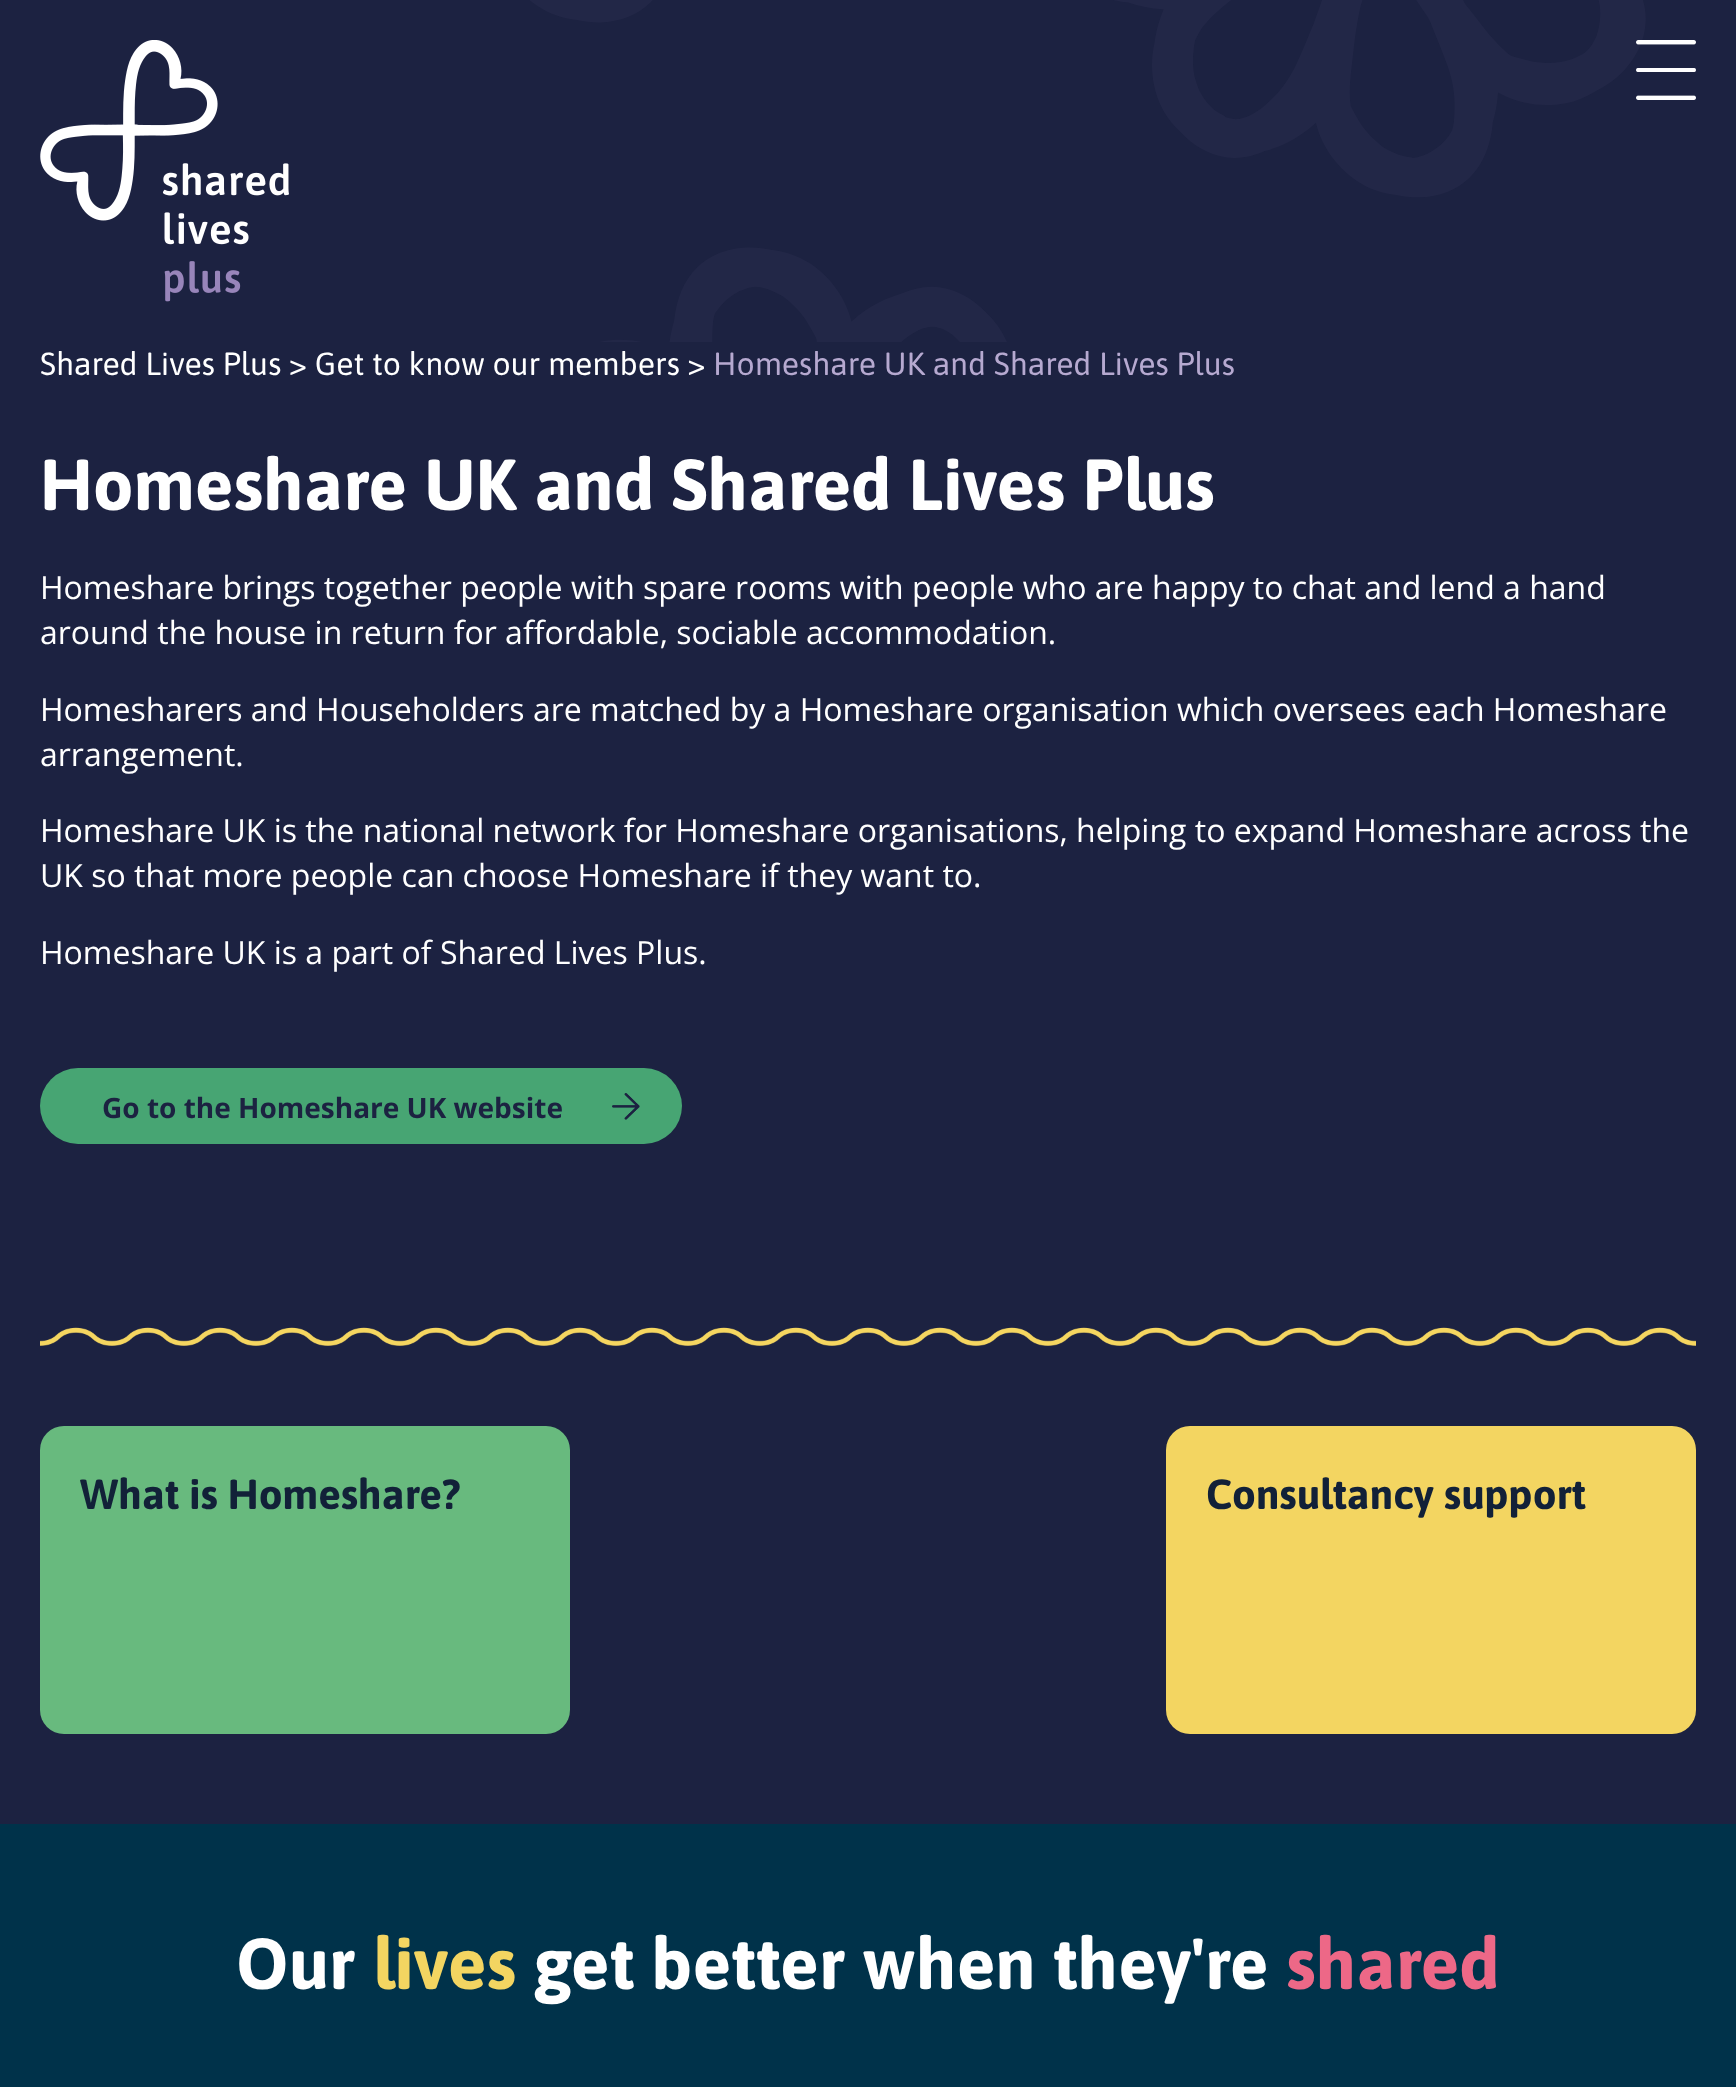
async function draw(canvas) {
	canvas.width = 1736;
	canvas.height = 2087;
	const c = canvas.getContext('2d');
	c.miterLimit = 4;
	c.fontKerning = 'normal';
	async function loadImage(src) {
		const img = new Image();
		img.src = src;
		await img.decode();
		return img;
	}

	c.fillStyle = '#1c2241';
	c.fillRect(0, 0, 1736, 2087);
	c.drawImage(await loadImage('img1.png'), 530, 0, 1116, 342);
	c.drawImage(await loadImage('img2.png'), 40, 40, 249, 262);
	c.drawImage(await loadImage('img3.png'), 1636, 40, 60, 60);
	c.font = '32px Asap';
	c.fillStyle = '#fff';
	c.fillText('Shared Lives Plus > Get to know our members >', 40, 375);
	c.fillStyle = '#b6a9d0';
	c.fillText('Homeshare UK and Shared Lives Plus', 713, 375);
	c.font = 'bold 72px Asap';
	c.fillStyle = '#fff';
	c.fillText('Homeshare UK and Shared Lives Plus', 40, 510);
	c.font = '32px Open Sans';
	for (const [text, x, y] of [
		['Homeshare brings together people with spare rooms with people who are happy to chat and lend a hand', 40, 599],
		['around the house in return for affordable, sociable accommodation.', 40, 644],
		['Homesharers and Householders are matched by a Homeshare organisation which oversees each Homeshare', 40, 721],
		['arrangement.', 40, 766],
		['Homeshare UK is the national network for Homeshare organisations, helping to expand Homeshare across the', 40, 842],
		['UK so that more people can choose Homeshare if they want to.', 40, 887],
		['Homeshare UK is a part of Shared Lives Plus.', 40, 964],
	]) {
		c.fillText(text, x, y);
	}
	c.fillStyle = '#47a573';
	c.beginPath();
	c.roundRect(40, 1068, 642, 76, 38);
	c.fill();
	c.font = 'bold 28px Open Sans';
	c.fillStyle = '#1c2241';
	c.fillText('Go to the Homeshare UK website', 102, 1118);
	c.drawImage(await loadImage('img4.png'), 612, 1093, 28, 27);
	c.drawImage(await loadImage('img5.png'), 40, 1327, 1656, 19);
	c.fillStyle = '#68ba7e';
	c.beginPath();
	c.roundRect(40, 1426, 530, 308, 24);
	c.fill();
	c.font = 'bold 42px Asap';
	c.fillStyle = '#122138';
	c.fillText('What is Homeshare?', 80, 1509);
	c.fillStyle = '#f3d561';
	c.beginPath();
	c.roundRect(1166, 1426, 530, 308, 24);
	c.fill();
	c.fillStyle = '#122138';
	c.fillText('Consultancy support', 1206, 1509);
	c.fillStyle = '#00324a';
	c.fillRect(0, 1824, 1736, 263);
	c.font = 'bold 72px Asap';
	c.fillStyle = '#fff';
	c.fillText('Our', 236, 1989);
	c.fillStyle = '#f3d561';
	c.fillText('lives', 373, 1989);
	c.fillStyle = '#fff';
	c.fillText('get better when they\'re', 533, 1989);
	c.fillStyle = '#ed6887';
	c.fillText('shared', 1286, 1989);
}

draw(document.querySelector('canvas'));
